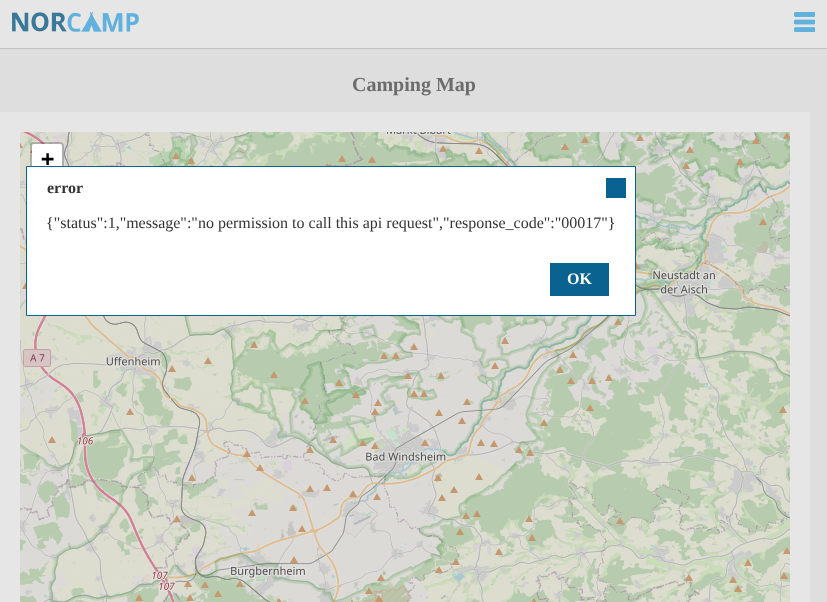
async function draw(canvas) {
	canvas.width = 827;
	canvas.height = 602;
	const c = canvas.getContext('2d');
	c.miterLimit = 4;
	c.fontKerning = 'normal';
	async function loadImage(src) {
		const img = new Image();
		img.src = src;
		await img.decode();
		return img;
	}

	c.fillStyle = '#dedede';
	c.fillRect(0, 0, 827, 602);
	c.fillStyle = '#e6e6e6';
	c.fillRect(0, 0, 827, 48);
	c.fillStyle = '#c2c2c2';
	c.fillRect(0, 48, 827, 1);
	c.drawImage(await loadImage('img1.png'), 12, 12, 127, 20);
	c.drawImage(await loadImage('img2.png'), 794, 12, 21, 20);
	c.font = 'bold 20px Liberation Serif';
	c.fillStyle = '#6c6c6c';
	c.fillText('Camping Map', 352, 91);
	c.fillStyle = '#e6e6e6';
	c.fillRect(0, 112, 810, 490);
	c.drawImage(await loadImage('img3.png'), 20, 132, 62, 81);
	c.drawImage(await loadImage('img4.png'), 82, 132, 256, 34);
	c.drawImage(await loadImage('img5.png'), 338, 132, 256, 34);
	c.drawImage(await loadImage('img6.png'), 594, 132, 196, 81);
	c.drawImage(await loadImage('img7.png'), 20, 213, 62, 256);
	c.drawImage(await loadImage('img8.png'), 82, 316, 256, 153);
	c.drawImage(await loadImage('img9.png'), 338, 316, 256, 153);
	c.drawImage(await loadImage('img10.png'), 594, 213, 196, 256);
	c.drawImage(await loadImage('img11.png'), 20, 469, 62, 133);
	c.drawImage(await loadImage('img12.png'), 82, 469, 256, 133);
	c.drawImage(await loadImage('img13.png'), 338, 469, 256, 133);
	c.drawImage(await loadImage('img14.png'), 594, 469, 196, 133);
	c.beginPath();
	c.roundRect(31, 143, 32, 63, 3);
	c.strokeStyle = '#00000033';
	c.lineWidth = 2;
	c.stroke();
	c.fillStyle = '#fff';
	c.beginPath();
	c.roundRect(32, 144, 30, 31, [2, 2, 0, 0]);
	c.fill();
	c.font = 'bold 22px DejaVu Sans Mono';
	c.fillStyle = '#000';
	c.fillText('+', 41, 166);
	c.fillStyle = '#fff';
	c.beginPath();
	c.rect(26.5, 166.5, 609, 149);
	c.fill();
	c.strokeStyle = '#0a6290';
	c.lineWidth = 1;
	c.stroke();
	c.font = 'bold 16px Liberation Serif';
	c.fillStyle = '#333';
	c.fillText('error', 47, 193);
	c.fillStyle = '#0a6290';
	c.fillRect(606, 178, 20, 20);
	c.font = '16px Liberation Serif';
	c.fillStyle = '#333';
	c.fillText('{"status":1,"message":"no permission to call this api request","response_code":"00017"}', 46, 228);
	c.fillStyle = '#0a6290';
	c.fillRect(550, 263, 59, 33);
	c.font = 'bold 16px Liberation Serif';
	c.fillStyle = '#fff';
	c.fillText('OK', 567, 284);
}

draw(document.querySelector('canvas'));
